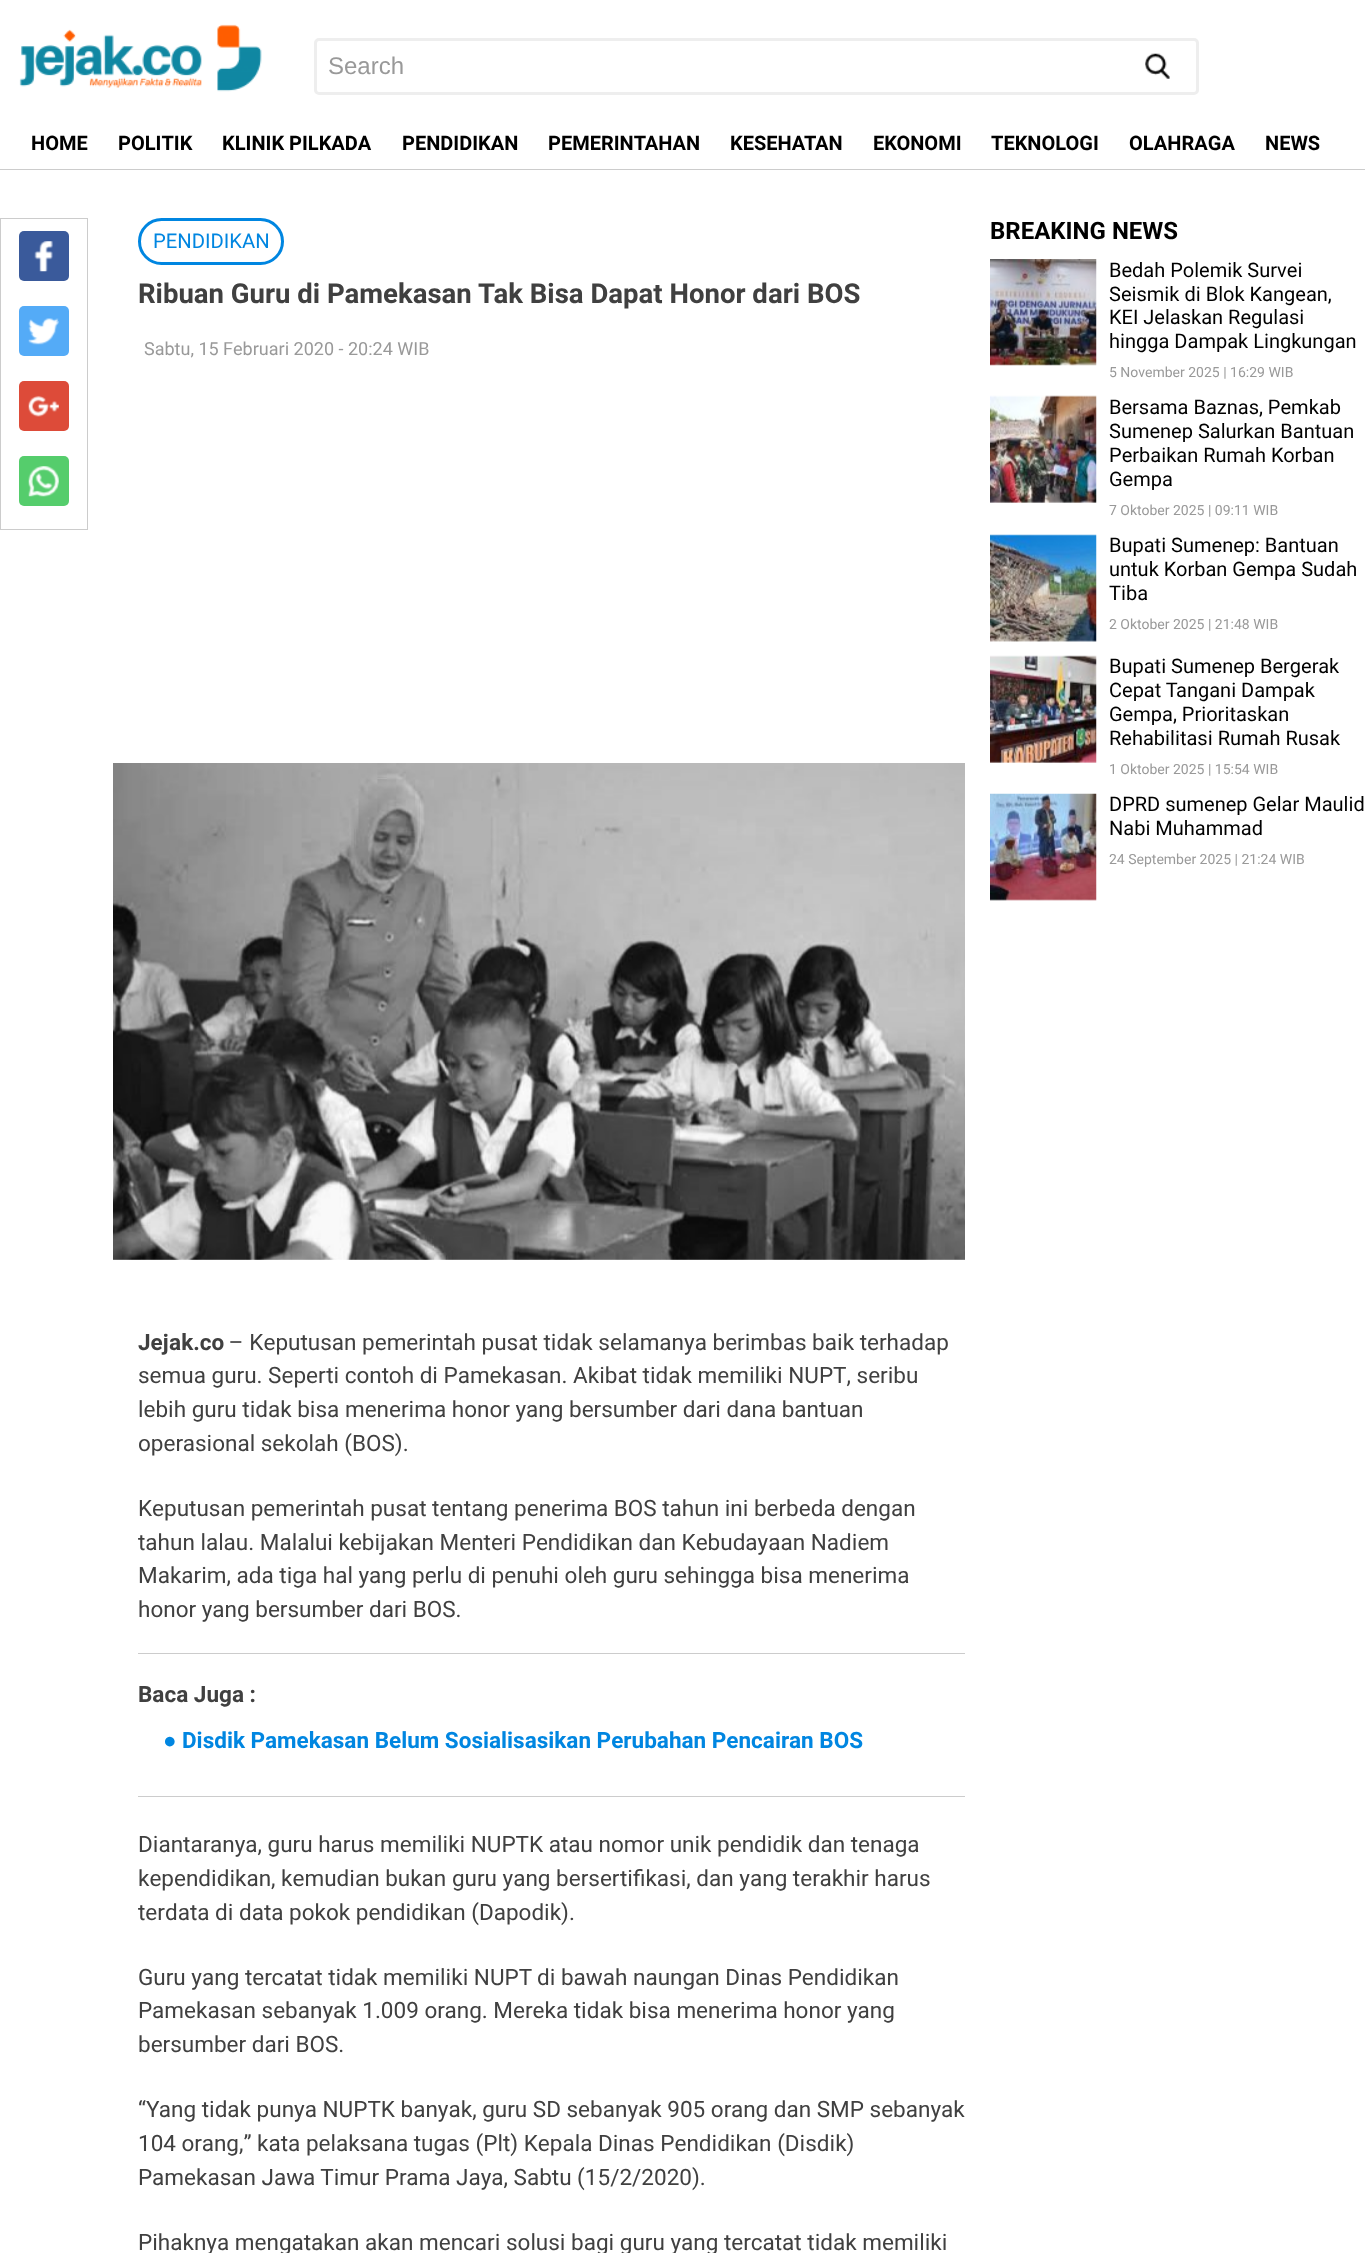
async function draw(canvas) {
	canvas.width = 1365;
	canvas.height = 2253;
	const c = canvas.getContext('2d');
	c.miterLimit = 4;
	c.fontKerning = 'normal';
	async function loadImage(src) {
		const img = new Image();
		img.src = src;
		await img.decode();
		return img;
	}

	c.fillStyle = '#fff';
	c.fillRect(0, 0, 1365, 2253);
	c.fillStyle = '#ccc';
	c.fillRect(0, 169, 1365, 1);
	c.drawImage(await loadImage('img1.png'), 19, 24, 243, 68);
	c.drawImage(await loadImage('img2.png'), 1145, 53, 25, 26);
	c.beginPath();
	c.roundRect(315.5, 39.5, 882, 54, 3.5);
	c.strokeStyle = '#eee';
	c.lineWidth = 3;
	c.stroke();
	c.font = '24px Liberation Sans';
	c.fillStyle = '#999';
	c.fillText('Search', 328, 74);
	c.font = 'bold 20px Heebo';
	c.fillStyle = '#000';
	for (const [text, x, y] of [
		['HOME', 31, 150],
		['POLITIK', 118, 150],
		['KLINIK PILKADA', 222, 150],
		['PENDIDIKAN', 402, 150],
		['PEMERINTAHAN', 548, 150],
		['KESEHATAN', 730, 150],
		['EKONOMI', 873, 150],
		['TEKNOLOGI', 991, 150],
		['OLAHRAGA', 1129, 150],
		['NEWS', 1265, 150],
	]) {
		c.fillText(text, x, y);
	}
	c.strokeStyle = '#ccc';
	c.lineWidth = 1;
	c.strokeRect(0.5, 218.5, 87, 311);
	c.fillStyle = '#3a5a9b';
	c.beginPath();
	c.roundRect(19, 231, 50, 50, 5);
	c.fill();
	c.drawImage(await loadImage('img3.png'), 34, 241, 19, 31);
	c.fillStyle = '#54abf7';
	c.beginPath();
	c.roundRect(19, 306, 50, 50, 5);
	c.fill();
	c.drawImage(await loadImage('img4.png'), 28, 318, 31, 27);
	c.fillStyle = '#dd4b39';
	c.beginPath();
	c.roundRect(19, 381, 50, 50, 5);
	c.fill();
	c.drawImage(await loadImage('img5.png'), 28, 395, 31, 22);
	c.fillStyle = '#55cd6c';
	c.beginPath();
	c.roundRect(19, 456, 50, 50, 5);
	c.fill();
	c.drawImage(await loadImage('img6.png'), 28, 466, 31, 31);
	c.beginPath();
	c.roundRect(139.5, 219.5, 143, 44, 22);
	c.strokeStyle = '#0086e1';
	c.lineWidth = 3;
	c.stroke();
	c.font = '20.25px Heebo';
	c.fillStyle = '#0086e1';
	c.fillText('PENDIDIKAN', 153, 248);
	c.font = 'bold 27.5px Heebo';
	c.fillStyle = '#404040';
	c.fillText('Ribuan Guru di Pamekasan Tak Bisa Dapat Honor dari BOS', 138, 303);
	c.font = '18px Heebo';
	c.fillStyle = '#999';
	c.fillText('Sabtu, 15 Februari 2020 - 20:24 WIB', 144, 355);
	c.drawImage(await loadImage('img7.png'), 113, 763, 852, 497);
	c.font = 'bold 22.5px Heebo';
	c.fillStyle = '#404040';
	c.fillText('Jejak.co', 138, 1350);
	c.font = '22.5px Heebo';
	for (const [text, x, y] of [
		['– Keputusan pemerintah pusat tidak selamanya berimbas baik terhadap', 229, 1350],
		['semua guru. Seperti contoh di Pamekasan. Akibat tidak memiliki NUPT, seribu', 138, 1383],
		['lebih guru tidak bisa menerima honor yang bersumber dari dana bantuan', 138, 1417],
		['operasional sekolah (BOS).', 138, 1451],
		['Keputusan pemerintah pusat tentang penerima BOS tahun ini berbeda dengan', 138, 1516],
		['tahun lalau. Malalui kebijakan Menteri Pendidikan dan Kebudayaan Nadiem', 138, 1550],
		['Makarim, ada tiga hal yang perlu di penuhi oleh guru sehingga bisa menerima', 138, 1583],
		['honor yang bersumber dari BOS.', 138, 1617],
	]) {
		c.fillText(text, x, y);
	}
	c.fillStyle = '#ccc';
	c.fillRect(138, 1653, 827, 1);
	c.fillRect(138, 1796, 827, 1);
	c.font = 'bold 22.5px Heebo';
	c.fillStyle = '#404040';
	c.fillText('Baca Juga :', 138, 1702);
	c.font = 'bold 22.5px Liberation Sans';
	c.fillStyle = '#0086e1';
	c.fillText('●', 163, 1748);
	c.font = 'bold 22.5px Heebo';
	c.fillText('Disdik Pamekasan Belum Sosialisasikan Perubahan Pencairan BOS', 182, 1748);
	c.font = '22.5px Heebo';
	c.fillStyle = '#404040';
	for (const [text, x, y] of [
		['Diantaranya, guru harus memiliki NUPTK atau nomor unik pendidik dan tenaga', 138, 1852],
		['kependidikan, kemudian bukan guru yang bersertifikasi, dan yang terakhir harus', 138, 1886],
		['terdata di data pokok pendidikan (Dapodik).', 138, 1920],
		['Guru yang tercatat tidak memiliki NUPT di bawah naungan Dinas Pendidikan', 138, 1985],
		['Pamekasan sebanyak 1.009 orang. Mereka tidak bisa menerima honor yang', 138, 2018],
		['bersumber dari BOS.', 138, 2052],
		['“Yang tidak punya NUPTK banyak, guru SD sebanyak 905 orang dan SMP sebanyak', 138, 2117],
		['104 orang,” kata pelaksana tugas (Plt) Kepala Dinas Pendidikan (Disdik)', 138, 2151],
		['Pamekasan Jawa Timur Prama Jaya, Sabtu (15/2/2020).', 138, 2185],
		['Pihaknya mengatakan akan mencari solusi bagi guru yang tercatat tidak memiliki', 138, 2250],
	]) {
		c.fillText(text, x, y);
	}
	c.font = 'bold 24px Heebo';
	c.fillStyle = '#000';
	c.fillText('BREAKING NEWS', 990, 239);
	c.drawImage(await loadImage('img8.png'), 990, 259, 107, 107);
	c.font = '20px Heebo';
	for (const [text, x, y] of [
		['Bedah Polemik Survei', 1109, 277],
		['Seismik di Blok Kangean,', 1109, 301],
		['KEI Jelaskan Regulasi', 1109, 324],
		['hingga Dampak Lingkungan ', 1109, 348],
	]) {
		c.fillText(text, x, y);
	}
	c.font = '14px Heebo';
	c.fillStyle = '#999';
	c.fillText('5 November 2025 | 16:29 WIB', 1109, 377);
	c.drawImage(await loadImage('img9.png'), 990, 395, 107, 108);
	c.font = '20px Heebo';
	c.fillStyle = '#000';
	for (const [text, x, y] of [
		['Bersama Baznas, Pemkab', 1109, 414],
		['Sumenep Salurkan Bantuan', 1109, 438],
		['Perbaikan Rumah Korban', 1109, 462],
		['Gempa', 1109, 486],
	]) {
		c.fillText(text, x, y);
	}
	c.font = '14px Heebo';
	c.fillStyle = '#999';
	c.fillText('7 Oktober 2025 | 09:11 WIB', 1109, 515);
	c.drawImage(await loadImage('img10.png'), 990, 534, 107, 108);
	c.font = '20px Heebo';
	c.fillStyle = '#000';
	for (const [text, x, y] of [
		['Bupati Sumenep: Bantuan', 1109, 552],
		['untuk Korban Gempa Sudah', 1109, 576],
		['Tiba', 1109, 600],
	]) {
		c.fillText(text, x, y);
	}
	c.font = '14px Heebo';
	c.fillStyle = '#999';
	c.fillText('2 Oktober 2025 | 21:48 WIB', 1109, 629);
	c.drawImage(await loadImage('img11.png'), 990, 655, 107, 108);
	c.font = '20px Heebo';
	c.fillStyle = '#000';
	for (const [text, x, y] of [
		['Bupati Sumenep Bergerak', 1109, 673],
		['Cepat Tangani Dampak', 1109, 697],
		['Gempa, Prioritaskan', 1109, 721],
		['Rehabilitasi Rumah Rusak', 1109, 745],
	]) {
		c.fillText(text, x, y);
	}
	c.font = '14px Heebo';
	c.fillStyle = '#999';
	c.fillText('1 Oktober 2025 | 15:54 WIB', 1109, 774);
	c.drawImage(await loadImage('img12.png'), 990, 793, 107, 108);
	c.font = '20px Heebo';
	c.fillStyle = '#000';
	c.fillText('DPRD sumenep Gelar Maulid', 1109, 811);
	c.fillText('Nabi Muhammad', 1109, 835);
	c.font = '14px Heebo';
	c.fillStyle = '#999';
	c.fillText('24 September 2025 | 21:24 WIB', 1109, 864);
}

draw(document.querySelector('canvas'));
